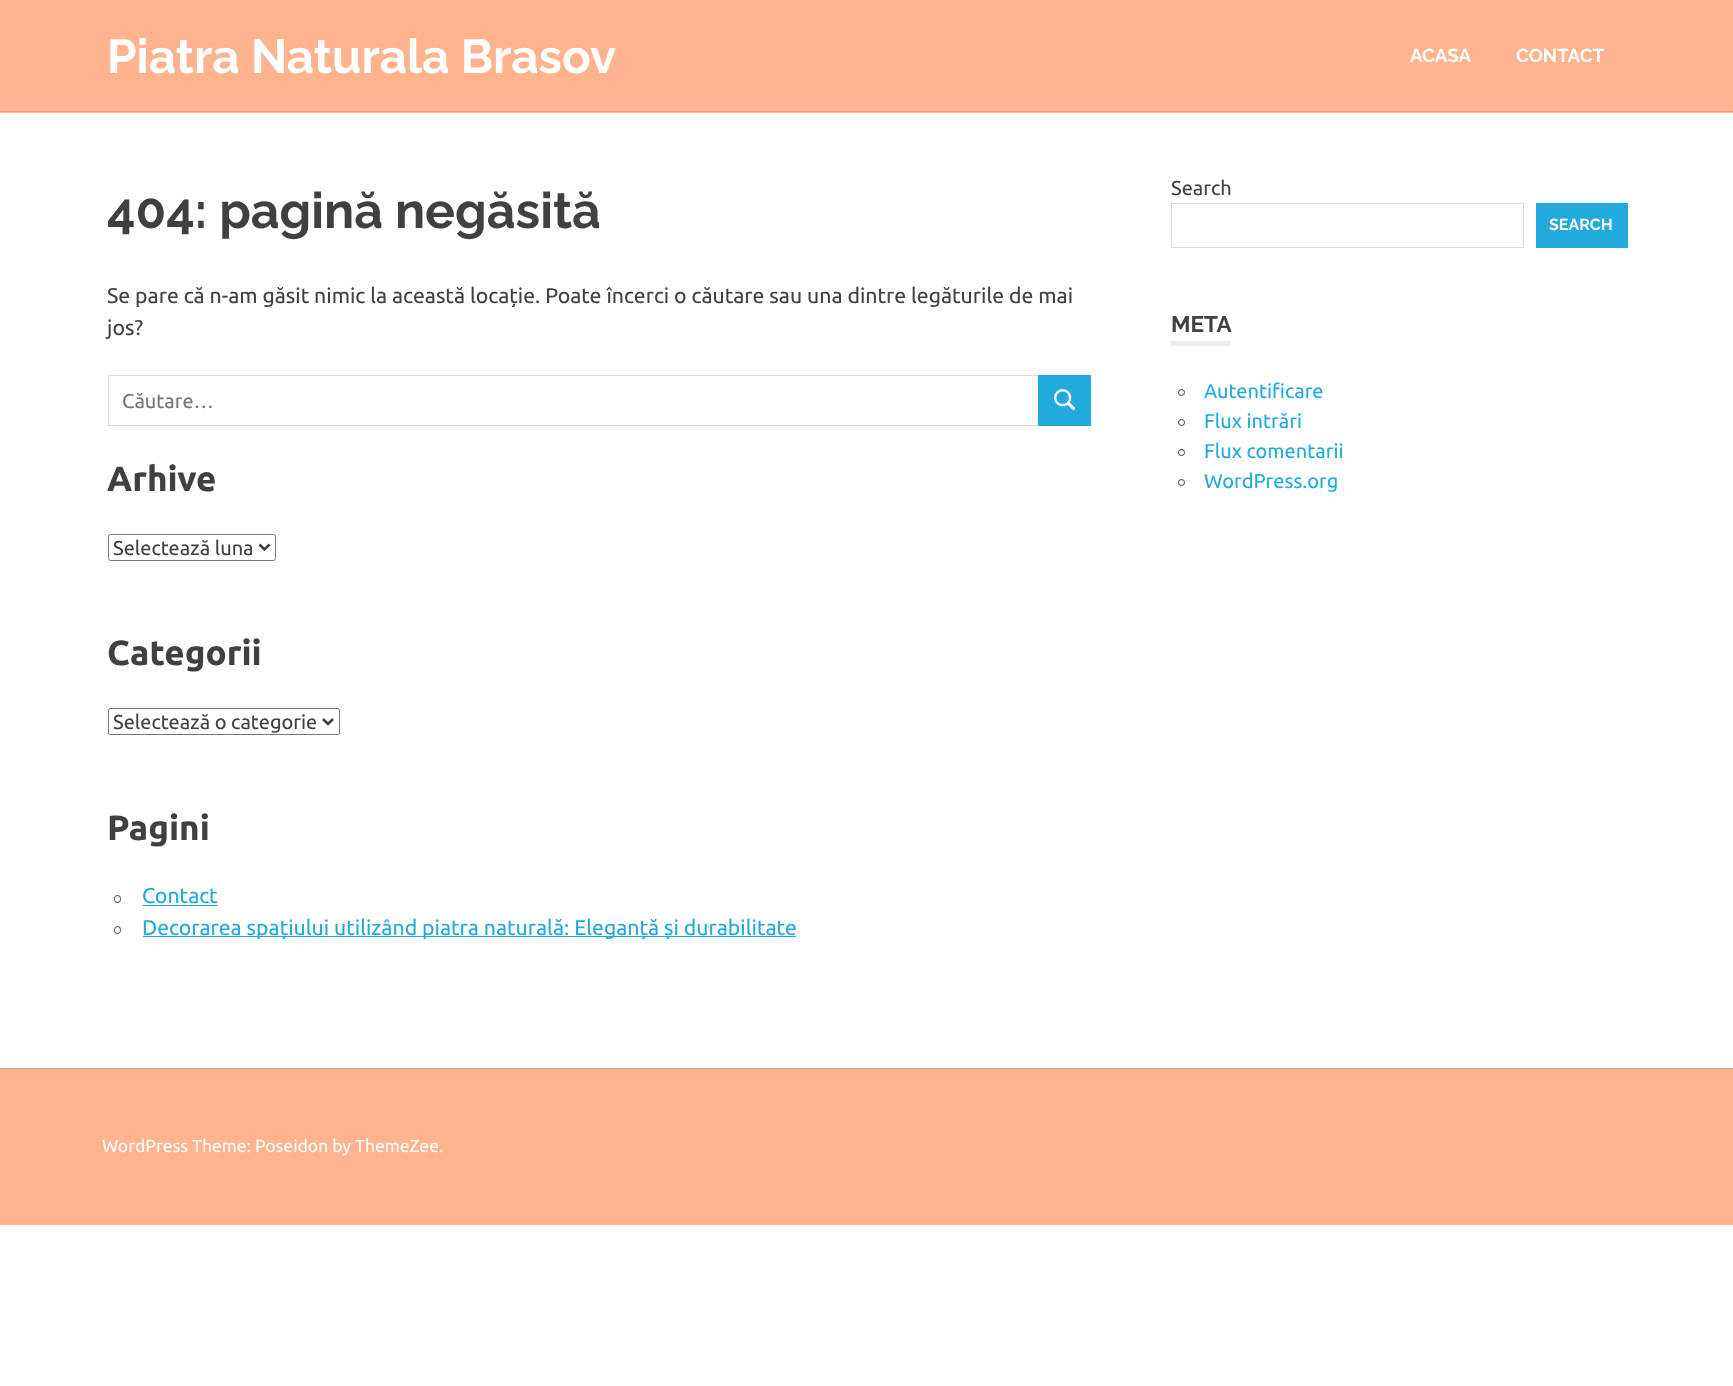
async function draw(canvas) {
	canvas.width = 1733;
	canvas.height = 1386;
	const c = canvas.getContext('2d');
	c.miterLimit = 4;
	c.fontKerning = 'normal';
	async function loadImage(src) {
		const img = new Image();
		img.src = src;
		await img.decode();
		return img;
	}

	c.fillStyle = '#fff';
	c.fillRect(0, 0, 1733, 1386);
	c.fillStyle = '#ffb38e';
	c.fillRect(0, 0, 1733, 113);
	c.fillStyle = '#e09e7d';
	c.fillRect(0, 111, 1733, 1);
	c.font = 'bold 47.5px Raleway';
	c.fillStyle = '#fff';
	c.fillText('Piatra Naturala Brasov', 107, 73);
	c.font = 'bold 18.75px Raleway';
	c.fillText('ACASA', 1410, 62);
	c.fillText('CONTACT', 1516, 62);
	c.font = 'bold 50px Raleway';
	c.fillStyle = '#404040';
	c.fillText('404: pagină negăsită', 107, 228);
	c.font = '21.25px Ubuntu';
	c.fillText('Se pare că n-am găsit nimic la această locație. Poate încerci o căutare sau una dintre legăturile de mai', 107, 303);
	c.fillText('jos?', 107, 335);
	c.strokeStyle = '#ddd';
	c.strokeRect(108.5, 375.5, 930, 50);
	c.font = '20px Ubuntu';
	c.fillStyle = '#757575';
	c.fillText('Căutare…', 122, 408);
	c.fillStyle = '#2ad';
	c.fillRect(1038, 375, 53, 51);
	c.drawImage(await loadImage('img1.png'), 1054, 389, 22, 22);
	c.font = 'bold 35px Ubuntu';
	c.fillStyle = '#404040';
	c.fillText('Arhive', 107, 491);
	c.beginPath();
	c.roundRect(108.5, 534.5, 167, 26, 2);
	c.strokeStyle = '#767676';
	c.stroke();
	c.beginPath();
	c.moveTo(259.5, 544.5);
	c.lineTo(264.5, 549.5);
	c.lineTo(269.5, 544.5);
	c.strokeStyle = '#404040';
	c.lineWidth = 2.5;
	c.stroke();
	c.font = '20px Ubuntu';
	c.fillText('Selectează luna', 113, 555);
	c.font = 'bold 35px Ubuntu';
	c.fillText('Categorii', 107, 665);
	c.beginPath();
	c.roundRect(108.5, 708.5, 231, 26, 2);
	c.strokeStyle = '#767676';
	c.lineWidth = 1;
	c.stroke();
	c.beginPath();
	c.moveTo(323, 719);
	c.lineTo(328, 724);
	c.lineTo(333, 719);
	c.strokeStyle = '#404040';
	c.lineWidth = 2.5;
	c.stroke();
	c.font = '20px Ubuntu';
	c.fillText('Selectează o categorie', 113, 729);
	c.font = 'bold 35px Ubuntu';
	c.fillText('Pagini', 107, 840);
	c.beginPath();
	c.roundRect(114.5, 895.5, 6, 7, 3);
	c.lineWidth = 1;
	c.stroke();
	c.font = '21.25px Ubuntu';
	c.fillStyle = '#2ad';
	c.fillText('Contact', 142, 903);
	c.fillRect(143, 905, 75, 1);
	c.beginPath();
	c.roundRect(114.5, 926.5, 6, 7, 3);
	c.stroke();
	c.fillRect(143, 936, 653, 1);
	c.fillText('Decorarea spațiului utilizând piatra naturală: Eleganță și durabilitate', 142, 935);
	c.font = '20px Ubuntu';
	c.fillStyle = '#404040';
	c.fillText('Search', 1171, 195);
	c.strokeStyle = '#ddd';
	c.strokeRect(1171.5, 203.5, 352, 44);
	c.fillStyle = '#2ad';
	c.fillRect(1536, 203, 92, 45);
	c.font = 'bold 16px Raleway';
	c.fillStyle = '#fff';
	c.fillText('SEARCH', 1549, 230);
	c.fillStyle = '#eee';
	c.fillRect(1171, 341, 60, 5);
	c.font = 'bold 22.5px Raleway';
	c.fillStyle = '#404040';
	c.fillText('META', 1171, 332);
	c.beginPath();
	c.arc(1181.5, 392.5, 3, 0, 2 * Math.PI);
	c.strokeStyle = '#404040';
	c.stroke();
	c.font = '20px Ubuntu';
	c.fillStyle = '#2ad';
	c.fillText('Autentificare', 1204, 398);
	c.beginPath();
	c.arc(1181.5, 422.5, 3, 0, 2 * Math.PI);
	c.stroke();
	c.fillText('Flux intrări', 1204, 428);
	c.beginPath();
	c.arc(1181.5, 452.5, 3, 0, 2 * Math.PI);
	c.stroke();
	c.fillText('Flux comentarii', 1204, 458);
	c.beginPath();
	c.arc(1181.5, 482.5, 3, 0, 2 * Math.PI);
	c.stroke();
	c.fillText('WordPress.org', 1204, 488);
	c.fillStyle = '#ffb38e';
	c.fillRect(0, 1069, 1733, 156);
	c.fillStyle = '#e09e7d';
	c.fillRect(0, 1068, 1733, 1);
	c.font = '17.5px Ubuntu';
	c.fillStyle = '#fff';
	c.fillText('WordPress Theme: Poseidon by ThemeZee.', 102, 1152);
}

draw(document.querySelector('canvas'));
